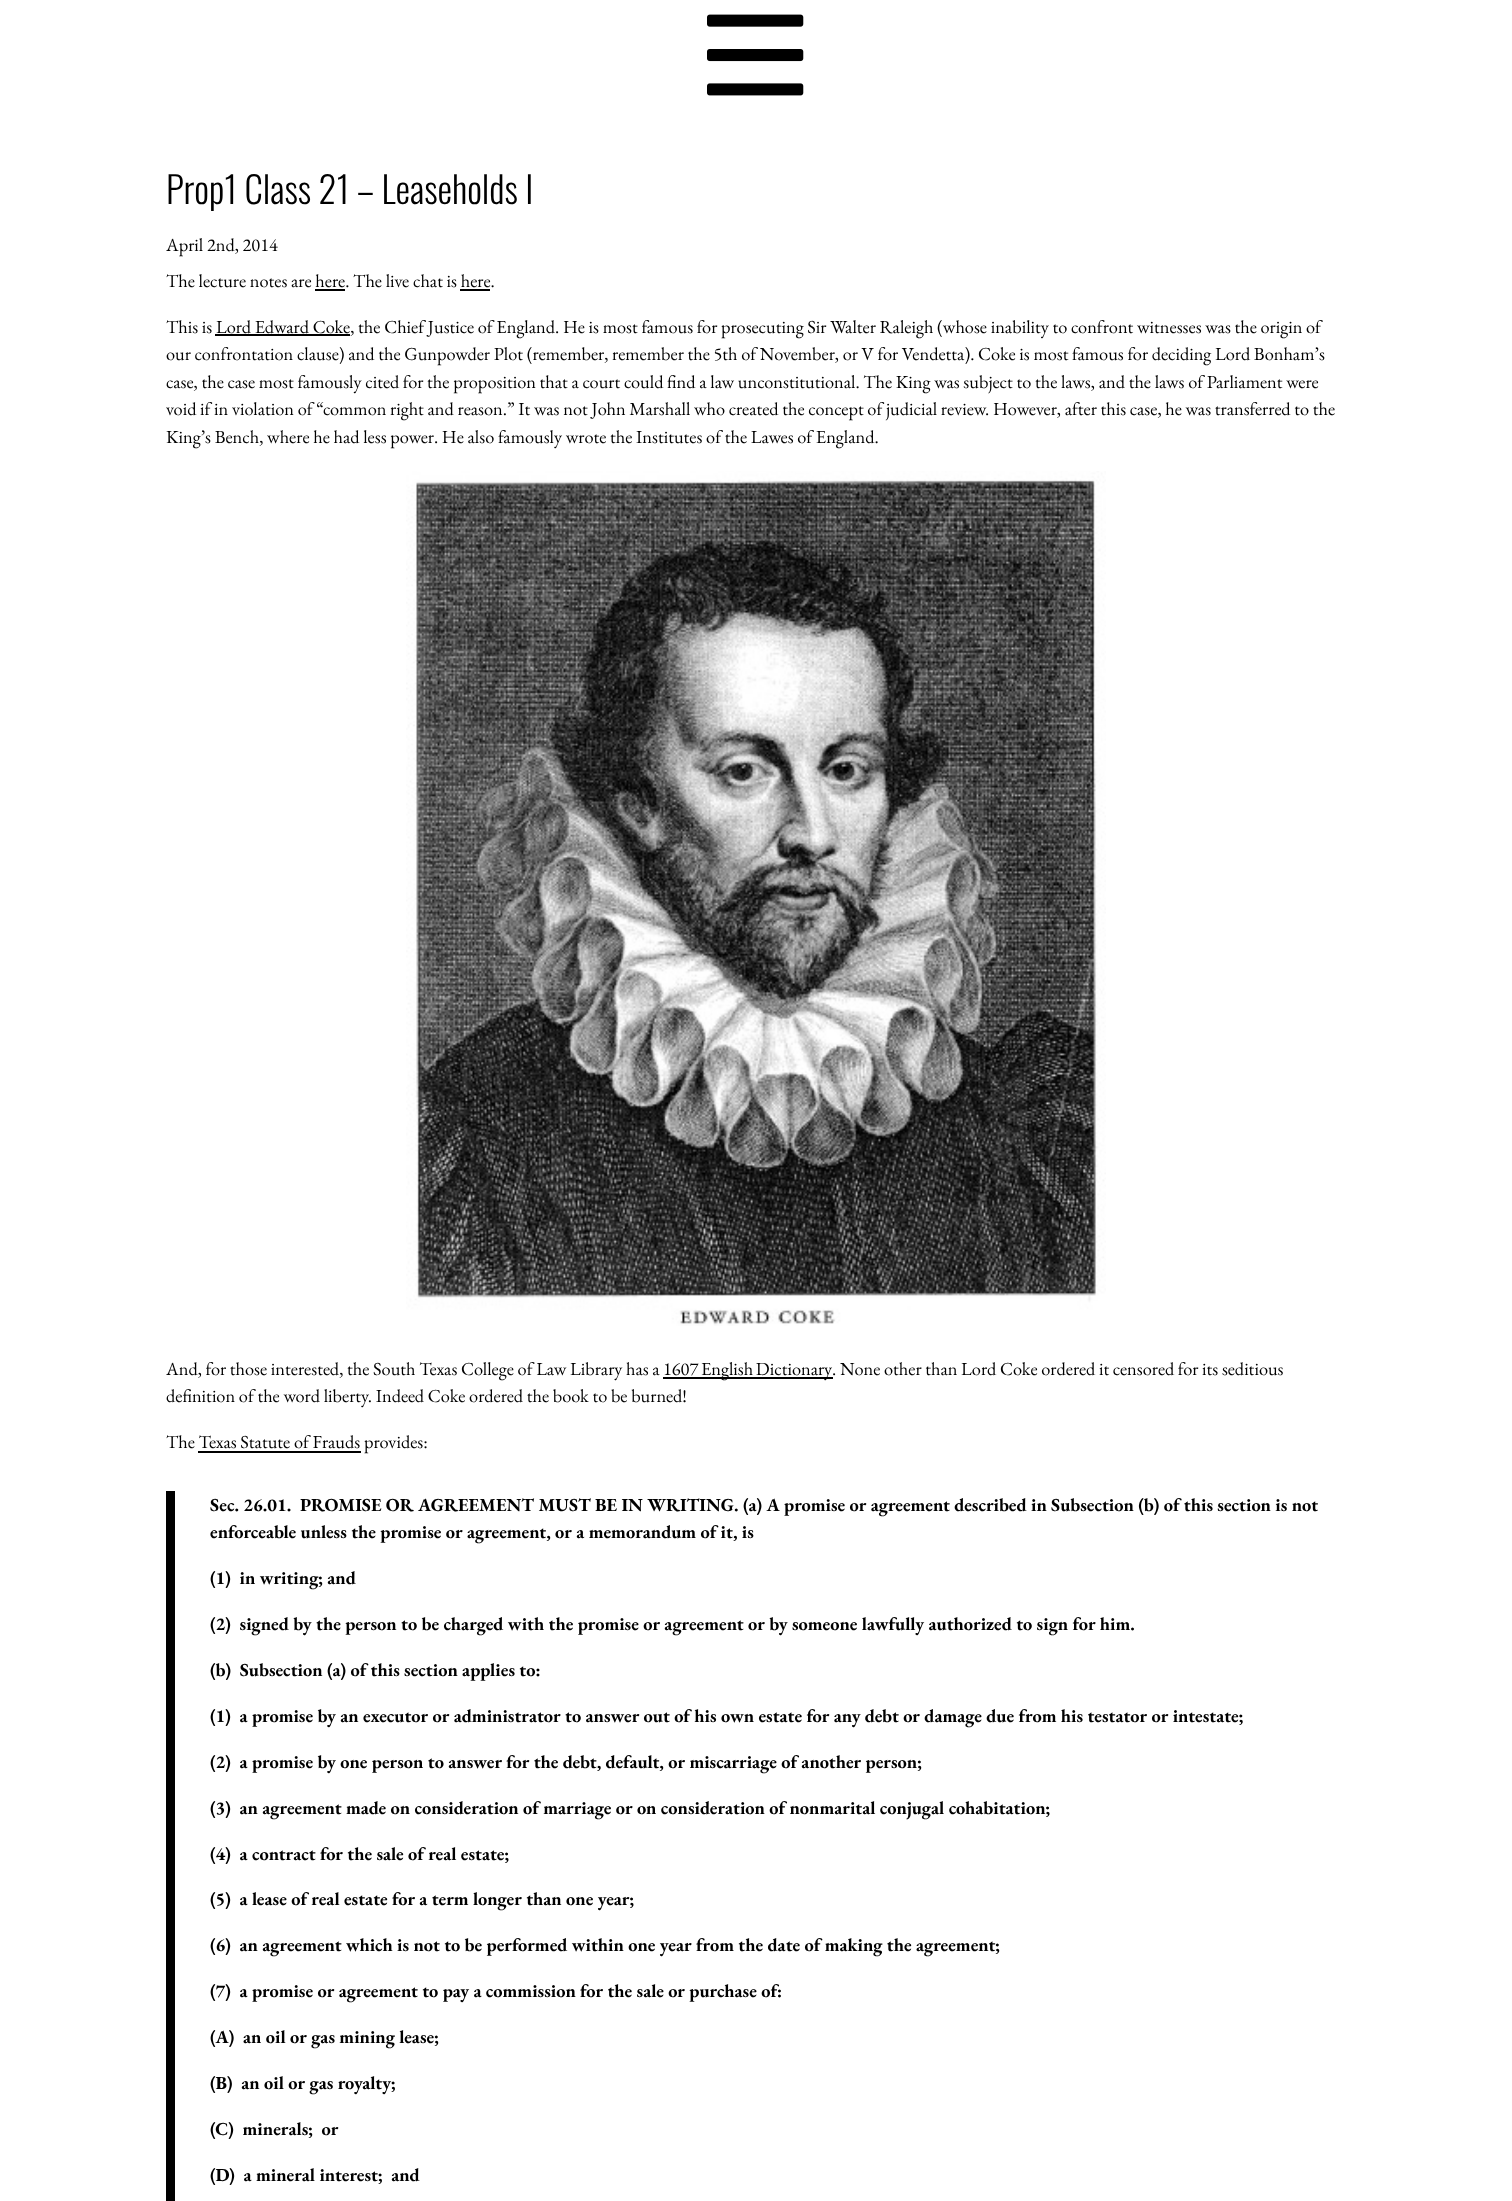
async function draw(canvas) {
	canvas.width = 1512;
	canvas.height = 2201;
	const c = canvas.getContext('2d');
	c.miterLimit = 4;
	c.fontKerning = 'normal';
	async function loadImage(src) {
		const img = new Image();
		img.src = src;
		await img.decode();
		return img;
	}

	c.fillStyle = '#fff';
	c.fillRect(0, 0, 1512, 2201);
	c.drawImage(await loadImage('img1.png'), 707, 14, 97, 82);
	c.font = '300 36.75px Oswald';
	c.fillStyle = '#000';
	c.fillText('Prop1 Class 21 – Leaseholds I', 166, 204);
	c.font = '18.35px EB Garamond';
	c.fillText('April 2nd, 2014', 166, 251);
	c.fillText('The lecture notes are here. The live chat is here.', 166, 287);
	c.fillRect(315, 289, 30, 2);
	c.fillRect(460, 289, 30, 2);
	c.fillText('This is Lord Edward Coke, the Chief Justice of England. He is most famous for prosecuting Sir Walter Raleigh (whose inability to confront witnesses was the origin of', 166, 333);
	c.fillRect(215, 334, 135, 2);
	for (const [text, x, y] of [
		['our confrontation clause) and the Gunpowder Plot (remember, remember the 5th of November, or V for Vendetta). Coke is most famous for deciding Lord Bonham’s', 166, 360],
		['case, the case most famously cited for the proposition that a court could find a law unconstitutional. The King was subject to the laws, and the laws of Parliament were', 166, 388],
		['void if in violation of “common right and reason.” It was not John Marshall who created the concept of judicial review. However, after this case, he was transferred to the', 166, 415],
		['King’s Bench, where he had less power. He also famously wrote the Institutes of the Lawes of England.', 166, 443],
	]) {
		c.fillText(text, x, y);
	}
	c.drawImage(await loadImage('img2.png'), 406, 471, 700, 855);
	c.fillText('And, for those interested, the South Texas College of Law Library has a', 166, 1375);
	c.fillRect(663, 1377, 170, 2);
	c.wordSpacing = '-1px';
	c.fillText('1607 English Dictionary', 663, 1375);
	c.wordSpacing = '0px';
	for (const [text, x, y] of [
		['. None other than Lord Coke ordered it censored for its seditious', 832, 1375],
		['definition of the word liberty. Indeed Coke ordered the book to be burned!', 166, 1402],
		['The Texas Statute of Frauds provides:', 166, 1448],
	]) {
		c.fillText(text, x, y);
	}
	c.fillRect(198, 1451, 163, 2);
	c.fillRect(166, 1491, 9, 710);
	c.font = 'bold 18.35px EB Garamond';
	for (const [text, x, y] of [
		['Sec. 26.01.  PROMISE OR AGREEMENT MUST BE IN WRITING. (a) A promise or agreement described in Subsection (b) of this section is not', 210, 1511],
		['enforceable unless the promise or agreement, or a memorandum of it, is', 210, 1538],
		['(1)  in writing; and', 210, 1584],
		['(2)  signed by the person to be charged with the promise or agreement or by someone lawfully authorized to sign for him.', 210, 1630],
		['(b)  Subsection (a) of this section applies to:', 210, 1676],
		['(1)  a promise by an executor or administrator to answer out of his own estate for any debt or damage due from his testator or intestate;', 210, 1722],
		['(2)  a promise by one person to answer for the debt, default, or miscarriage of another person;', 210, 1768],
		['(3)  an agreement made on consideration of marriage or on consideration of nonmarital conjugal cohabitation;', 210, 1814],
		['(4)  a contract for the sale of real estate;', 210, 1860],
		['(5)  a lease of real estate for a term longer than one year;', 210, 1905],
		['(6)  an agreement which is not to be performed within one year from the date of making the agreement;', 210, 1951],
		['(7)  a promise or agreement to pay a commission for the sale or purchase of:', 210, 1997],
		['(A)  an oil or gas mining lease;', 210, 2043],
		['(B)  an oil or gas royalty;', 210, 2089],
		['(C)  minerals;  or', 210, 2135],
		['(D)  a mineral interest;  and', 210, 2181],
	]) {
		c.fillText(text, x, y);
	}
}

draw(document.querySelector('canvas'));
